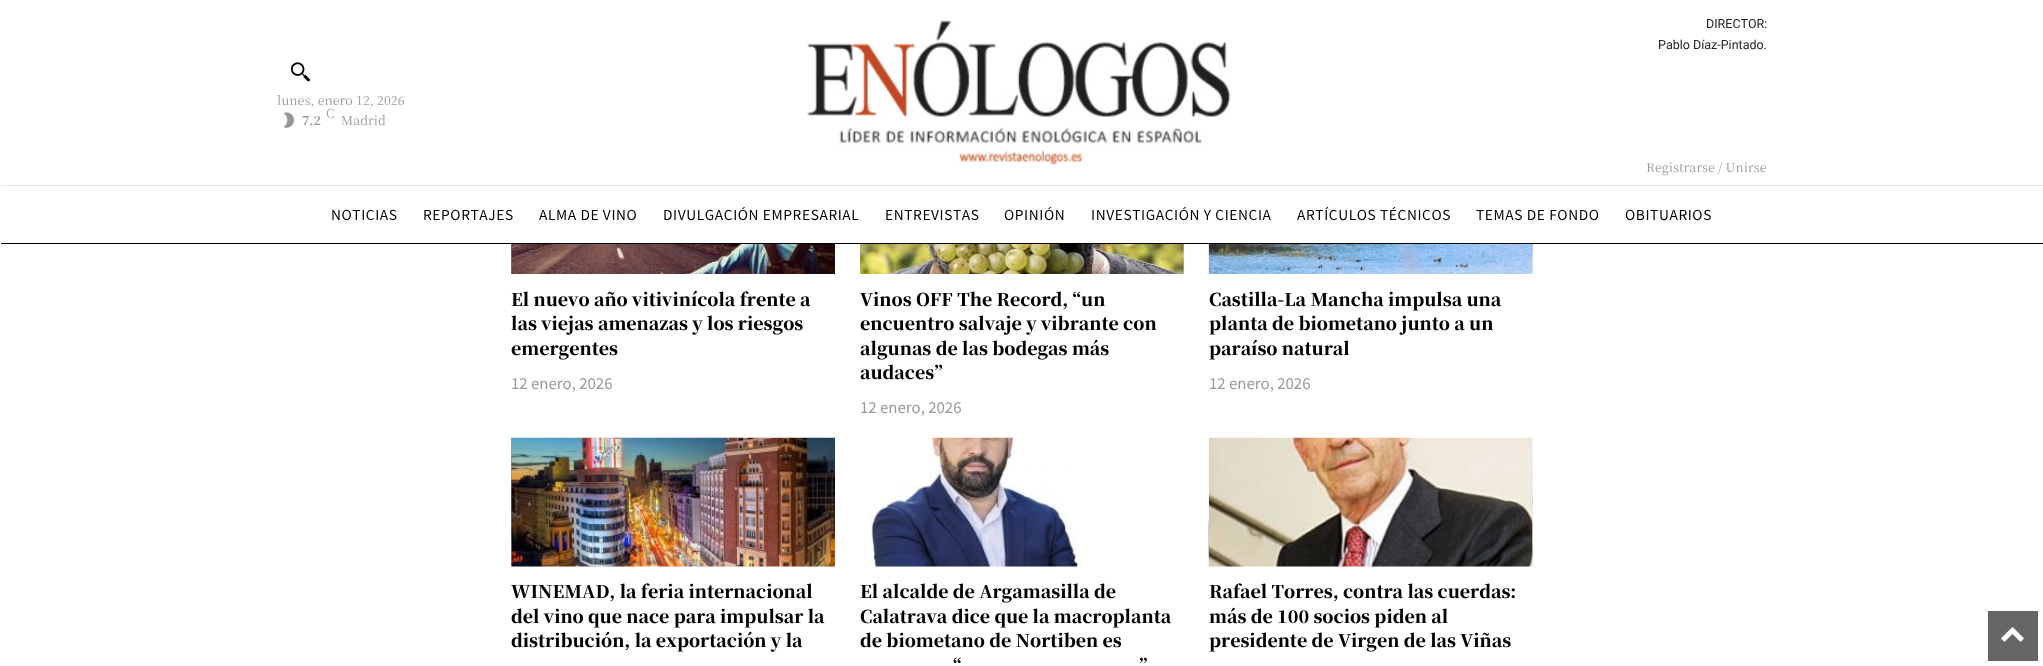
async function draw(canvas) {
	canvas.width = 2043;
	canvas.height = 666;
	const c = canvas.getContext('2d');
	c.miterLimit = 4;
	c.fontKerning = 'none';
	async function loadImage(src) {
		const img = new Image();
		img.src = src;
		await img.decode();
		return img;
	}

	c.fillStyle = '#fff';
	c.fillRect(0, 0, 2043, 666);
	c.drawImage(await loadImage('img1.png'), 290, 62, 20, 20);
	c.font = '12.5px Noto Serif JP';
	c.fillStyle = '#999';
	c.fillText('lunes, enero 12, 2026', 277, 105);
	c.drawImage(await loadImage('img2.png'), 283, 112, 11, 16);
	c.font = '300 12.5px Noto Serif JP';
	c.fillText('C', 326, 118);
	c.font = 'bold 12.5px Noto Serif JP';
	c.fillText('7.2', 302, 125);
	c.font = '12.5px Noto Serif JP';
	c.fillText('Madrid', 341, 125);
	c.drawImage(await loadImage('img3.png'), 807, 20, 424, 145);
	c.font = '12.5px Roboto';
	c.fillStyle = '#222';
	c.fillText('DIRECTOR:', 1706, 28);
	c.fillText('Pablo Díaz-Pintado.', 1658, 49);
	c.font = '12.5px Noto Serif JP';
	c.fillStyle = '#999';
	c.fillText('Registrarse / Unirse', 1646, 172);
	c.fillStyle = '#e8e8e8';
	c.fillRect(1, 185, 2042, 1);
	c.letterSpacing = '0.6px';
	c.font = '100 13.75px Noto Sans JP';
	c.fillStyle = '#000';
	for (const [text, x, y] of [
		['NOTICIAS', 331, 220],
		['REPORTAJES', 423, 220],
		['ALMA DE VINO', 539, 220],
		['DIVULGACIÓN EMPRESARIAL', 663, 220],
		['ENTREVISTAS', 885, 220],
		['OPINIÓN', 1004, 220],
		['INVESTIGACIÓN Y CIENCIA', 1091, 220],
		['ARTÍCULOS TÉCNICOS', 1297, 220],
		['TEMAS DE FONDO', 1476, 220],
		['OBITUARIOS', 1625, 220],
	]) {
		c.fillText(text, x, y);
	}
	c.fillRect(1, 243, 2042, 1);
	c.drawImage(await loadImage('img4.png'), 511, 244, 324, 30);
	c.letterSpacing = '0px';
	c.font = '900 17.5px Noto Serif JP';
	for (const [text, x, y] of [
		['El nuevo año vitivinícola frente a', 511, 306],
		['las viejas amenazas y los riesgos', 511, 330],
		['emergentes', 511, 355],
	]) {
		c.fillText(text, x, y);
	}
	c.font = '100 15px Noto Sans JP';
	c.fillStyle = '#999';
	c.fillText('12 enero, 2026', 511, 389);
	c.drawImage(await loadImage('img5.png'), 860, 244, 324, 30);
	c.font = '900 17.5px Noto Serif JP';
	c.fillStyle = '#000';
	for (const [text, x, y] of [
		['Vinos OFF The Record, “un', 860, 306],
		['encuentro salvaje y vibrante con', 860, 330],
		['algunas de las bodegas más', 860, 355],
		['audaces”', 860, 379],
	]) {
		c.fillText(text, x, y);
	}
	c.font = '100 15px Noto Sans JP';
	c.fillStyle = '#999';
	c.fillText('12 enero, 2026', 860, 413);
	c.drawImage(await loadImage('img6.png'), 1208, 244, 325, 30);
	c.font = '900 17.5px Noto Serif JP';
	c.fillStyle = '#000';
	for (const [text, x, y] of [
		['Castilla-La Mancha impulsa una', 1209, 306],
		['planta de biometano junto a un', 1209, 330],
		['paraíso natural', 1209, 355],
	]) {
		c.fillText(text, x, y);
	}
	c.font = '100 15px Noto Sans JP';
	c.fillStyle = '#999';
	c.fillText('12 enero, 2026', 1209, 389);
	c.drawImage(await loadImage('img7.png'), 511, 437, 324, 130);
	c.font = '900 17.5px Noto Serif JP';
	c.fillStyle = '#000';
	for (const [text, x, y] of [
		['WINEMAD, la feria internacional', 511, 598],
		['del vino que nace para impulsar la', 511, 623],
		['distribución, la exportación y la', 511, 647],
	]) {
		c.fillText(text, x, y);
	}
	c.drawImage(await loadImage('img8.png'), 868, 437, 217, 130);
	for (const [text, x, y] of [
		['El alcalde de Argamasilla de', 860, 598],
		['Calatrava dice que la macroplanta', 860, 623],
		['de biometano de Nortiben es', 860, 647],
		['“', 953, 672],
		['”', 1139, 672],
	]) {
		c.fillText(text, x, y);
	}
	c.drawImage(await loadImage('img9.png'), 1208, 437, 325, 130);
	for (const [text, x, y] of [
		['Rafael Torres, contra las cuerdas:', 1209, 598],
		['más de 100 socios piden al', 1209, 623],
		['presidente de Virgen de las Viñas', 1209, 647],
	]) {
		c.fillText(text, x, y);
	}
	c.fillStyle = '#666';
	c.fillRect(1988, 611, 50, 50);
	c.drawImage(await loadImage('img10.png'), 2001, 627, 23, 15);
}

draw(document.querySelector('canvas'));
